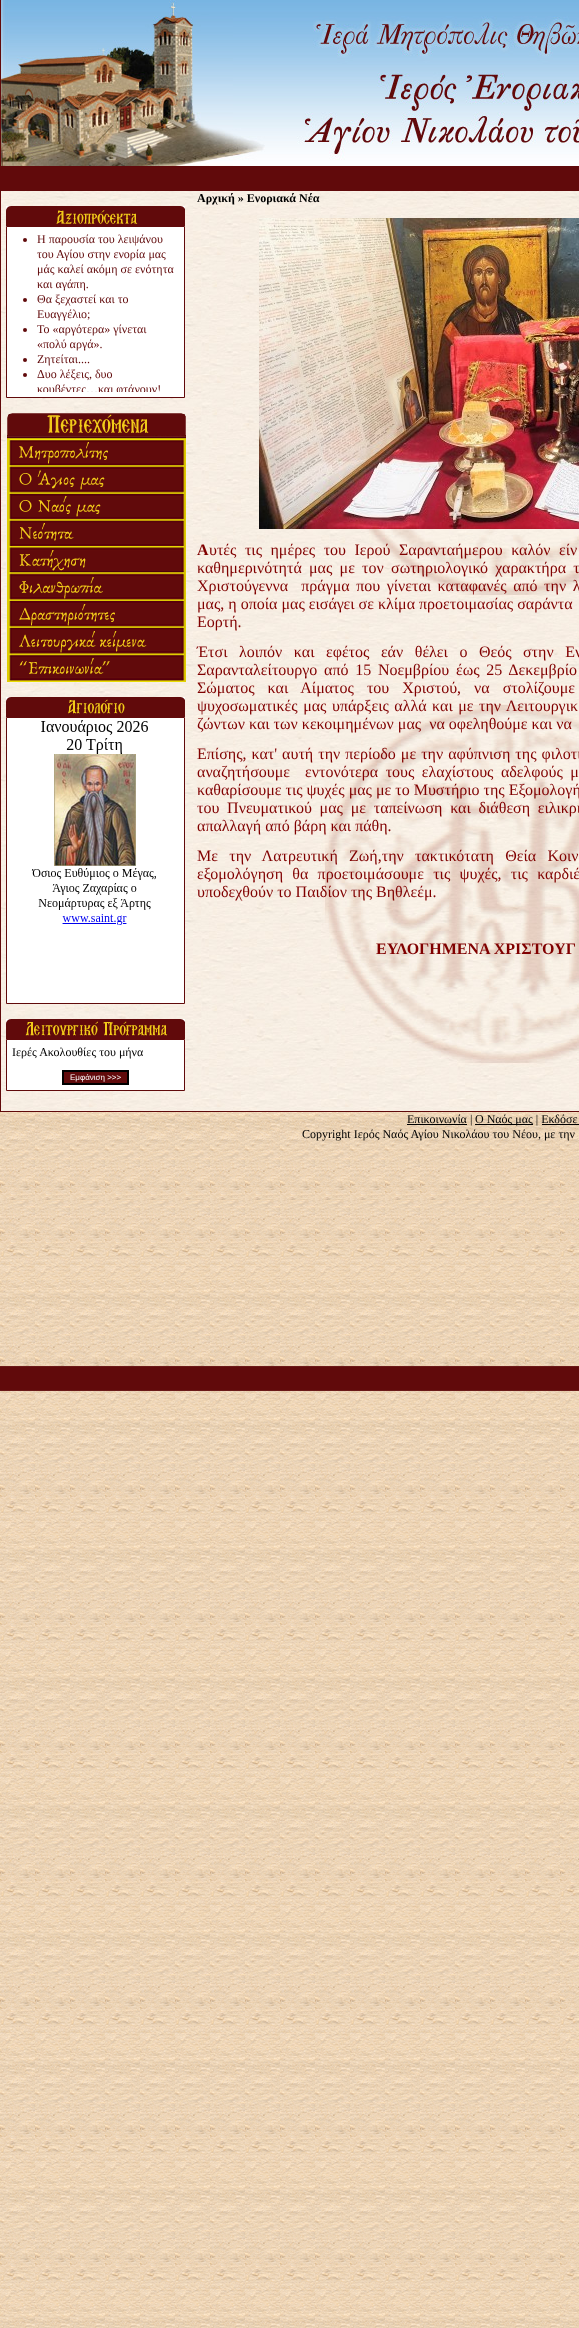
async function draw(canvas) {
	canvas.width = 579;
	canvas.height = 2328;
	const c = canvas.getContext('2d');
	c.miterLimit = 4;
	c.fontKerning = 'normal';
	async function loadImage(src) {
		const img = new Image();
		img.src = src;
		await img.decode();
		return img;
	}

	c.fillStyle = '#fff';
	c.fillRect(0, 0, 579, 2328);
	c.drawImage(await loadImage('img1.png'), 0, 1112, 579, 1216);
	c.fillStyle = '#610a0b';
	c.fillRect(0, 1111, 579, 1);
	c.fillRect(0, 0, 1, 1112);
	c.drawImage(await loadImage('img2.png'), 233, 0, 346, 16);
	c.drawImage(await loadImage('img3.png'), 1, 0, 232, 166);
	c.drawImage(await loadImage('img4.png'), 233, 16, 346, 150);
	c.fillRect(1, 166, 578, 25);
	c.drawImage(await loadImage('img5.png'), 1, 191, 578, 920);
	c.fillRect(6, 206, 179, 20);
	c.drawImage(await loadImage('img6.png'), 6, 206, 5, 5);
	c.drawImage(await loadImage('img7.png'), 180, 206, 5, 3);
	c.drawImage(await loadImage('img8.png'), 56, 210, 82, 14);
	c.fillStyle = '#fff';
	c.beginPath();
	c.rect(6.5, 226.5, 178, 171);
	c.fill();
	c.strokeStyle = '#610a0b';
	c.stroke();
	c.fillStyle = '#610a0b';
	c.beginPath();
	c.arc(25, 240, 2, 0, 2 * Math.PI);
	c.fill();
	c.font = '12px Liberation Serif';
	for (const [text, x, y] of [
		['Η παρουσία του λειψάνου', 37, 243],
		['του Αγίου στην ενορία μας', 37, 258],
		['μάς καλεί ακόμη σε ενότητα', 37, 273],
		['και αγάπη.', 37, 288],
	]) {
		c.fillText(text, x, y);
	}
	c.beginPath();
	c.arc(25, 300, 2, 0, 2 * Math.PI);
	c.fill();
	c.fillText('Θα ξεχαστεί και το', 37, 303);
	c.fillText('Ευαγγέλιο;', 37, 318);
	c.beginPath();
	c.arc(25, 330, 2, 0, 2 * Math.PI);
	c.fill();
	c.fillText('Το «αργότερα» γίνεται', 37, 333);
	c.fillText('«πολύ αργά».', 37, 348);
	c.beginPath();
	c.arc(25, 360, 2, 0, 2 * Math.PI);
	c.fill();
	c.fillText('Ζητείται....', 37, 363);
	c.beginPath();
	c.arc(25, 375, 2, 0, 2 * Math.PI);
	c.fill();
	c.fillText('Δυο λέξεις, δυο', 37, 378);
	c.save();
	c.beginPath();
	c.rect(12, 232, 167, 160);
	c.clip();
	c.fillText('κουβέντες…και φτάνουν!', 37, 393);
	c.restore();
	c.drawImage(await loadImage('img9.png'), 6, 413, 180, 26);
	c.drawImage(await loadImage('img10.png'), 6, 439, 180, 27);
	c.drawImage(await loadImage('img11.png'), 7, 466, 179, 27);
	c.drawImage(await loadImage('img12.png'), 6, 493, 180, 27);
	c.drawImage(await loadImage('img13.png'), 6, 520, 180, 27);
	c.drawImage(await loadImage('img14.png'), 6, 547, 180, 26);
	c.drawImage(await loadImage('img15.png'), 7, 573, 179, 27);
	c.drawImage(await loadImage('img16.png'), 7, 600, 179, 27);
	c.drawImage(await loadImage('img17.png'), 6, 627, 180, 27);
	c.drawImage(await loadImage('img18.png'), 7, 654, 179, 28);
	c.drawImage(await loadImage('img19.png'), 6, 697, 5, 20);
	c.fillRect(11, 697, 169, 20);
	c.drawImage(await loadImage('img20.png'), 68, 699, 57, 15);
	c.drawImage(await loadImage('img21.png'), 180, 697, 5, 20);
	c.fillStyle = '#fff';
	c.beginPath();
	c.rect(6.5, 717.5, 178, 286);
	c.fill();
	c.stroke();
	c.drawImage(await loadImage('img22.png'), 31, 720, 125, 205);
	c.fillStyle = '#610a0b';
	c.fillRect(6, 1019, 179, 20);
	c.drawImage(await loadImage('img6.png'), 6, 1019, 5, 5);
	c.drawImage(await loadImage('img7.png'), 180, 1019, 5, 3);
	c.drawImage(await loadImage('img23.png'), 25, 1021, 143, 15);
	c.fillStyle = '#fff';
	c.beginPath();
	c.rect(6.5, 1039.5, 178, 51);
	c.fill();
	c.stroke();
	c.fillStyle = '#000';
	c.fillText('Ιερές Ακολουθίες του μήνα', 12, 1056);
	c.fillStyle = '#610a0b';
	c.beginPath();
	c.rect(63, 1071, 65, 13);
	c.fill();
	c.strokeStyle = '#000';
	c.lineWidth = 2;
	c.stroke();
	c.font = '8px Liberation Sans';
	c.fillStyle = '#fff';
	c.fillText('Εμφάνιση >>>', 70, 1080);
	c.font = 'bold 12px Liberation Serif';
	c.fillStyle = '#000';
	c.fillText('Αρχική » Ενοριακά Νέα', 197, 202);
	c.drawImage(await loadImage('img24.png'), 259, 218, 320, 311);
	c.font = 'bold 16px Liberation Serif';
	c.fillStyle = '#800000';
	c.fillText('Α', 197, 555);
	c.wordSpacing = '4.5px';
	c.font = '16px Liberation Serif';
	c.fillText('υτές τις ημέρες του Ιερού Σαρανταήμερου καλόν είν', 209, 555);
	c.wordSpacing = '3.25px';
	c.fillText('καθημερινότητά μας με τον σωτηριολογικό χαρακτήρα τ', 197, 573);
	c.wordSpacing = '2.5px';
	c.fillText('Χριστούγεννα  πράγμα που γίνεται καταφανές από την λ', 197, 591);
	c.wordSpacing = '0px';
	c.fillText('μας, η οποία μας εισάγει σε κλίμα προετοιμασίας σαράντα', 197, 609);
	c.fillText('Εορτή.', 197, 627);
	c.wordSpacing = '7.5px';
	c.fillText('Έτσι λοιπόν και εφέτος εάν θέλει ο Θεός στην Εν', 197, 657);
	c.wordSpacing = '2.75px';
	c.fillText('Σαρανταλείτουργο από 15 Νοεμβρίου έως 25 Δεκεμβρίο', 197, 675);
	c.wordSpacing = '9px';
	c.fillText('Σώματος και Αίματος του Χριστού, να στολίζουμε', 197, 693);
	c.wordSpacing = '1.5px';
	c.fillText('ψυχοσωματικές μας υπάρξεις αλλά και με την Λειτουργικ', 197, 711);
	c.wordSpacing = '0px';
	c.fillText('ζώντων και των κεκοιμημένων μας  να οφεληθούμε και να', 197, 729);
	c.wordSpacing = '1px';
	c.fillText('Επίσης, κατ\' αυτή την περίοδο με την αφύπνιση της φιλοτι', 197, 759);
	c.wordSpacing = '3.5px';
	c.fillText('αναζητήσουμε  εντονότερα τους ελαχίστους αδελφούς μ', 197, 777);
	c.wordSpacing = '0px';
	c.fillText('καθαρίσουμε τις ψυχές μας με το Μυστήριο της Εξομολογή', 197, 795);
	c.wordSpacing = '3.75px';
	c.fillText('του Πνευματικού μας με ταπείνωση και διάθεση ειλικρι', 197, 813);
	c.wordSpacing = '0px';
	c.fillText('απαλλαγή από βάρη και πάθη.', 197, 831);
	c.wordSpacing = '7.25px';
	c.fillText('Με την Λατρευτική Ζωή,την τακτικότατη Θεία Κοιν', 197, 861);
	c.wordSpacing = '5.25px';
	c.fillText('εξομολόγηση θα προετοιμάσουμε τις ψυχές, τις καρδιέ', 197, 879);
	c.wordSpacing = '0px';
	c.fillText('υποδεχθούν το Παιδίον της Βηθλεέμ.', 197, 897);
	c.font = 'bold 16px Liberation Serif';
	c.fillText('ΕΥΛΟΓΗΜΕΝΑ ΧΡΙΣΤΟΥΓ', 376, 954);
	c.fillStyle = '#000';
	c.fillRect(407, 1124, 60, 1);
	c.font = '12px Liberation Serif';
	c.fillText('Επικοινωνία |', 407, 1123);
	c.fillRect(475, 1124, 58, 1);
	c.fillText('Ο Ναός μας | Εκδόσε', 475, 1123);
	c.fillRect(542, 1124, 37, 1);
	c.fillText('Copyright Ιερός Ναός Αγίου Νικολάου του Νέου, με την', 302, 1138);
}

draw(document.querySelector('canvas'));
